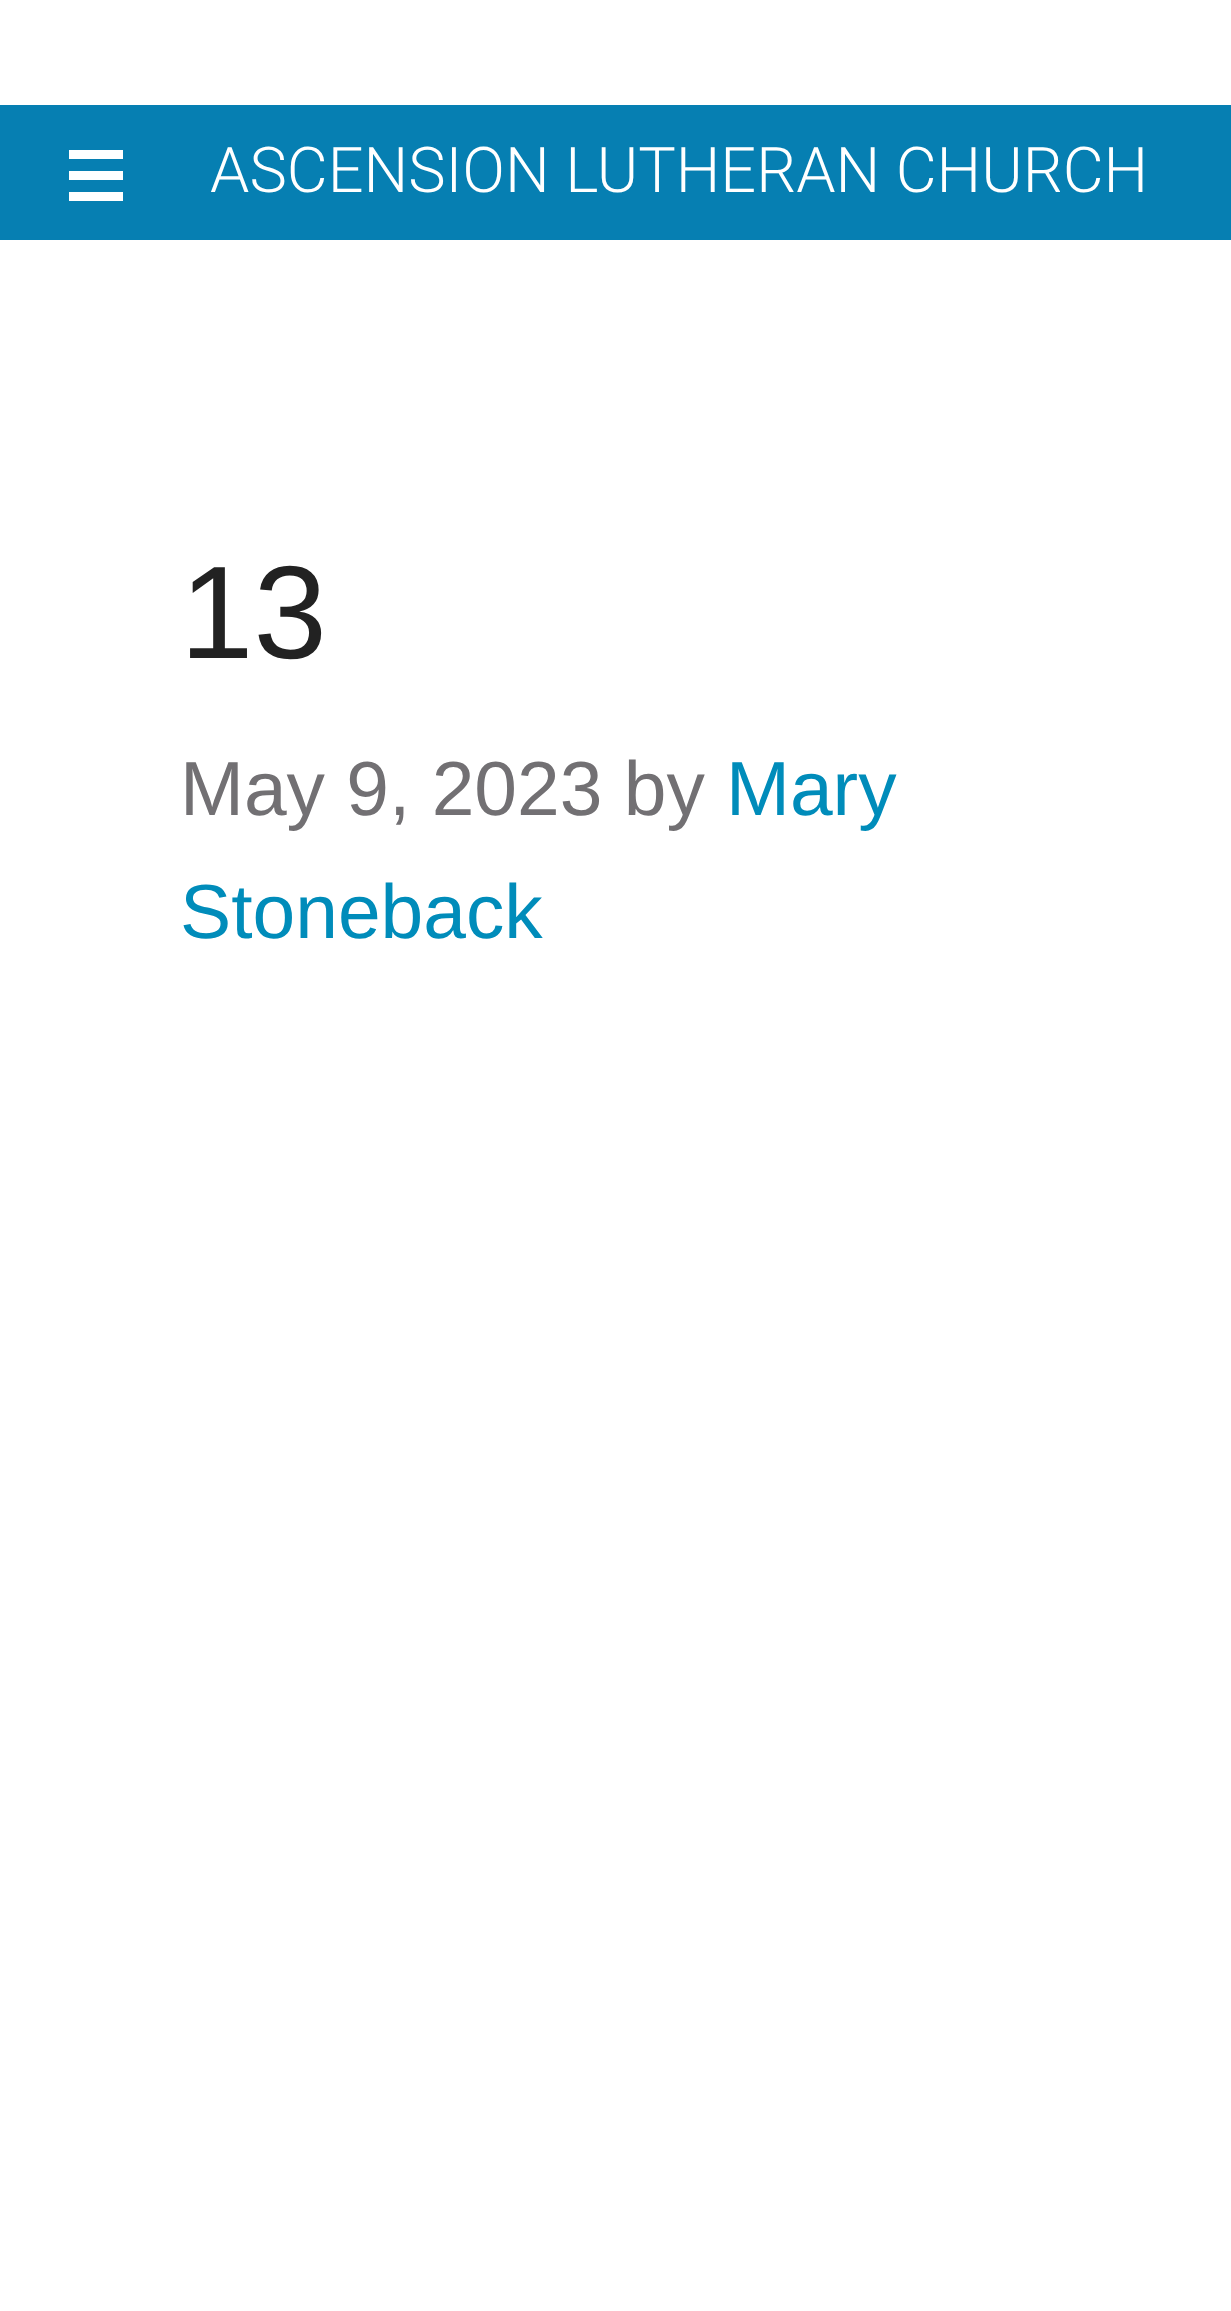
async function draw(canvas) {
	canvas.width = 1231;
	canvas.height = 2311;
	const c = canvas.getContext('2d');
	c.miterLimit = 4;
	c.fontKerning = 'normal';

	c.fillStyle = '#fff';
	c.fillRect(0, 0, 1231, 2311);
	for (const [x, y, w, h, color] of [
		[0, 105, 1231, 135, '#067fb2'],
		[69, 192, 54, 9, '#fff'],
		[69, 171, 54, 9, '#fff'],
	]) {
		c.fillStyle = color;
		c.fillRect(x, y, w, h);
	}
	c.strokeStyle = '#fff';
	c.lineWidth = 3;
	c.strokeRect(70.5, 151.5, 51, 6);
	c.fillRect(72, 153, 48, 3);
	c.font = '300 63px Roboto';
	c.fillText('ASCENSION LUTHERAN CHURCH', 210, 192);
	c.font = '132px Liberation Sans';
	c.fillStyle = '#222';
	c.fillText('13', 180, 658);
	c.font = '76.75px Liberation Sans';
	c.fillStyle = '#727073';
	c.fillText('May 9, 2023 by', 180, 815);
	c.fillStyle = '#008cba';
	c.fillText('Mary', 726, 815);
	c.fillText('Stoneback', 180, 938);
}

draw(document.querySelector('canvas'));
